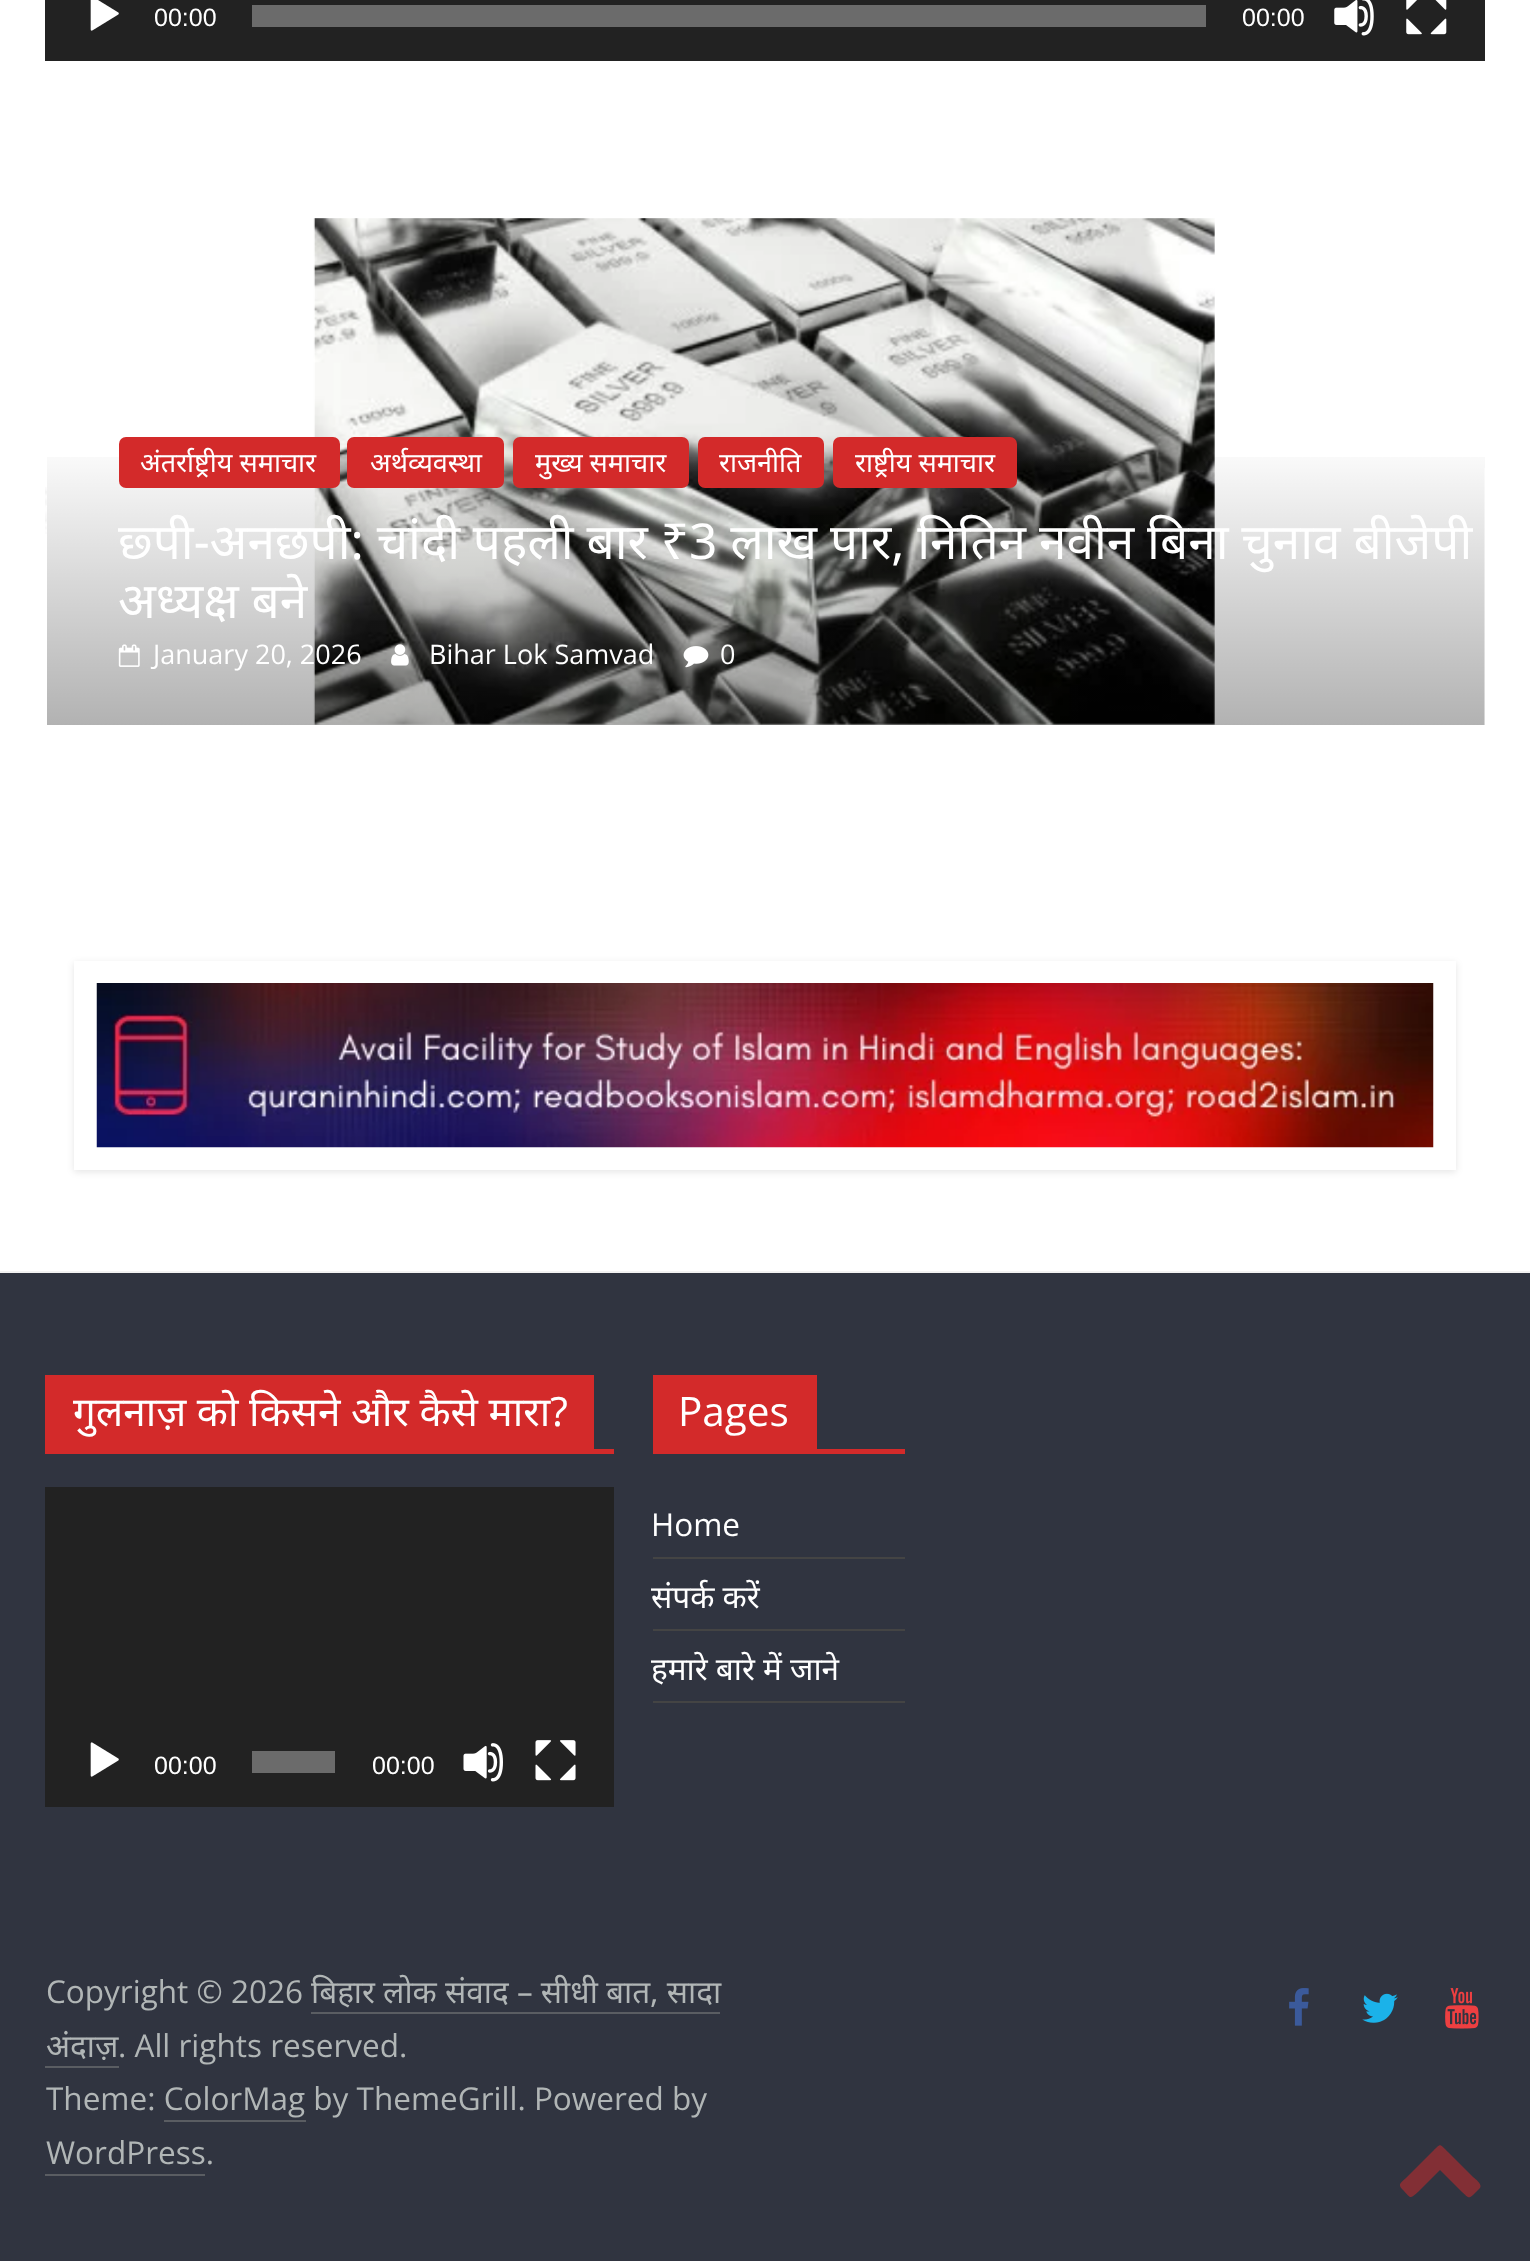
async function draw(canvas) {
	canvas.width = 1530;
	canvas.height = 2261;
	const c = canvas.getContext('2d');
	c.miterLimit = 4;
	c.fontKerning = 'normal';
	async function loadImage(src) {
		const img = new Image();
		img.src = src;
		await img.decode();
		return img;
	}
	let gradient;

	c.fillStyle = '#fff';
	c.fillRect(0, 0, 1530, 2261);
	c.fillStyle = '#222';
	c.fillRect(45, 0, 1440, 61);
	c.drawImage(await loadImage('img1.png'), 90, 0, 29, 31);
	c.font = '25px Liberation Sans';
	c.fillStyle = '#fff';
	c.fillText('00:00', 154, 26);
	c.fillStyle = '#6b6b6b';
	c.fillRect(252, 5, 954, 22);
	c.fillStyle = '#fff';
	c.fillText('00:00', 1242, 26);
	c.drawImage(await loadImage('img2.png'), 1334, 0, 40, 36);
	c.drawImage(await loadImage('img3.png'), 1406, 0, 41, 35);
	c.drawImage(await loadImage('img4.png'), 45, 487, 2, 47);
	c.drawImage(await loadImage('img5.png'), 313, 218, 902, 507);
	gradient = c.createLinearGradient(766, 436, 766, 725);
	gradient.addColorStop(0, '#00000000');
	gradient.addColorStop(1, '#0000004d');
	c.fillStyle = gradient;
	c.fillRect(47, 457, 1438, 268);
	c.fillStyle = '#d32a2a';
	c.beginPath();
	c.roundRect(119, 437, 221, 51, 7);
	c.fill();
	c.font = '27px Noto Sans';
	c.fillStyle = '#fff';
	c.fillText('अंतर्राष्ट्रीय समाचार', 140, 472);
	c.fillStyle = '#d32a2a';
	c.beginPath();
	c.roundRect(347, 437, 157, 51, 7);
	c.fill();
	c.fillStyle = '#fff';
	c.fillText('अर्थव्यवस्था', 370, 472);
	c.fillStyle = '#d32a2a';
	c.beginPath();
	c.roundRect(513, 437, 176, 51, 7);
	c.fill();
	c.fillStyle = '#fff';
	c.fillText('मुख्य समाचार', 535, 472);
	c.fillStyle = '#d32a2a';
	c.beginPath();
	c.roundRect(698, 437, 126, 51, 7);
	c.fill();
	c.fillStyle = '#fff';
	c.fillText('राजनीति', 719, 472);
	c.fillStyle = '#d32a2a';
	c.beginPath();
	c.roundRect(833, 437, 184, 51, 7);
	c.fill();
	c.fillStyle = '#fff';
	c.fillText('राष्ट्रीय समाचार', 855, 472);
	c.font = '49.5px Noto Sans';
	c.fillText('छ्पी-अनछपी: चांदी पहली बार ₹3 लाख पार, नितिन नवीन बिना चुनाव बीजेपी', 118, 559);
	c.fillText('अध्यक्ष बने', 118, 618);
	c.drawImage(await loadImage('img6.png'), 118, 644, 22, 23);
	c.font = '27px Open Sans';
	c.fillText('January 20, 2026', 153, 664);
	c.drawImage(await loadImage('img7.png'), 391, 644, 18, 22);
	c.fillText('Bihar Lok Samvad', 429, 664);
	c.drawImage(await loadImage('img8.png'), 683, 646, 26, 22);
	c.fillText('0', 720, 664);
	c.fillStyle = '#ffffff75';
	c.fillRect(1484, 468, 1, 257);
	c.save();
	c.beginPath();
	c.moveTo(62, 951);
	c.lineTo(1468, 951);
	c.lineTo(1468, 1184);
	c.lineTo(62, 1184);
	c.closePath();
	c.moveTo(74, 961);
	c.lineTo(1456, 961);
	c.lineTo(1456, 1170);
	c.lineTo(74, 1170);
	c.closePath();
	c.clip('evenodd');
	c.fillStyle = '#0000001a';
	c.filter = 'blur(3.5px)';
	c.beginPath();
	c.rect(74, 963, 1382, 209);
	c.fill();
	c.filter = 'none';
	c.restore();
	c.drawImage(await loadImage('img9.png'), 96, 983, 1338, 165);
	for (const [x, y, w, h, color] of [
		[0, 1273, 1530, 988, '#303440'],
		[0, 1271, 1530, 2, '#f2f2f2'],
		[45, 1449, 569, 5, '#d32a2a'],
		[45, 1375, 549, 74, '#d32a2a'],
	]) {
		c.fillStyle = color;
		c.fillRect(x, y, w, h);
	}
	c.font = '40.5px Noto Sans';
	c.fillStyle = '#fff';
	c.fillText('गुलनाज़ को किसने और कैसे मारा?', 73, 1426);
	c.fillStyle = '#222';
	c.fillRect(45, 1487, 569, 320);
	c.drawImage(await loadImage('img10.png'), 90, 1742, 29, 35);
	c.font = '25px Liberation Sans';
	c.fillStyle = '#fff';
	c.fillText('00:00', 154, 1774);
	c.fillStyle = '#6b6b6b';
	c.fillRect(252, 1751, 83, 22);
	c.fillStyle = '#fff';
	c.fillText('00:00', 372, 1774);
	c.drawImage(await loadImage('img11.png'), 463, 1743, 40, 39);
	c.drawImage(await loadImage('img12.png'), 535, 1740, 41, 41);
	c.fillStyle = '#d32a2a';
	c.fillRect(653, 1449, 252, 5);
	c.fillRect(653, 1375, 164, 74);
	c.font = '40.5px Open Sans';
	c.fillStyle = '#fff';
	c.fillText('Pages', 678, 1426);
	c.fillStyle = '#444';
	c.fillRect(653, 1557, 252, 2);
	c.font = '31.5px Open Sans';
	c.fillStyle = '#fff';
	c.fillText('Home', 651, 1536);
	c.fillStyle = '#444';
	c.fillRect(653, 1629, 252, 2);
	c.font = '31.5px Noto Sans';
	c.fillStyle = '#fff';
	c.fillText('संपर्क करें', 651, 1608);
	c.fillStyle = '#444';
	c.fillRect(653, 1701, 252, 2);
	c.fillStyle = '#fff';
	c.fillText('हमारे बारे में जाने', 651, 1680);
	c.font = '31.5px Open Sans';
	c.fillStyle = '#b1b6b6';
	c.fillText('Copyright © 2026', 46, 2003);
	c.font = '31.5px Noto Sans';
	c.fillText('बिहार लोक संवाद – सीधी बात, सादा', 311, 2003);
	c.fillStyle = '#5a5d62';
	c.fillRect(311, 2012, 409, 2);
	c.fillStyle = '#b1b6b6';
	c.fillText('अंदाज़', 46, 2057);
	c.fillStyle = '#5a5d62';
	c.fillRect(45, 2066, 74, 2);
	c.font = '31.5px Open Sans';
	c.fillStyle = '#b1b6b6';
	c.fillText('. All rights reserved.', 118, 2057);
	c.fillText('Theme: ColorMag by ThemeGrill. Powered by', 46, 2110);
	c.fillStyle = '#5a5d62';
	c.fillRect(164, 2120, 142, 2);
	c.fillStyle = '#b1b6b6';
	c.fillText('WordPress.', 46, 2164);
	c.fillStyle = '#5a5d62';
	c.fillRect(45, 2174, 160, 2);
	c.drawImage(await loadImage('img13.png'), 1289, 1988, 20, 38);
	c.drawImage(await loadImage('img14.png'), 1362, 1993, 36, 30);
	c.drawImage(await loadImage('img15.png'), 1445, 1988, 34, 41);
	c.fillStyle = '#822f35';
	c.beginPath();
	c.moveTo(1480, 2188);
	c.lineTo(1473, 2195);
	c.bezierCurveTo(1468, 2200, 1467, 2196, 1462, 2192);
	c.lineTo(1440, 2170);
	c.lineTo(1418, 2192);
	c.bezierCurveTo(1409, 2200, 1411, 2198, 1402, 2189);
	c.bezierCurveTo(1397, 2184, 1402, 2182, 1407, 2177);
	c.lineTo(1432, 2152);
	c.bezierCurveTo(1441, 2143, 1439, 2143, 1448, 2152);
	c.lineTo(1473, 2177);
	c.bezierCurveTo(1474, 2178, 1483, 2184, 1480, 2188);
	c.closePath();
	c.fill();
}

draw(document.querySelector('canvas'));
